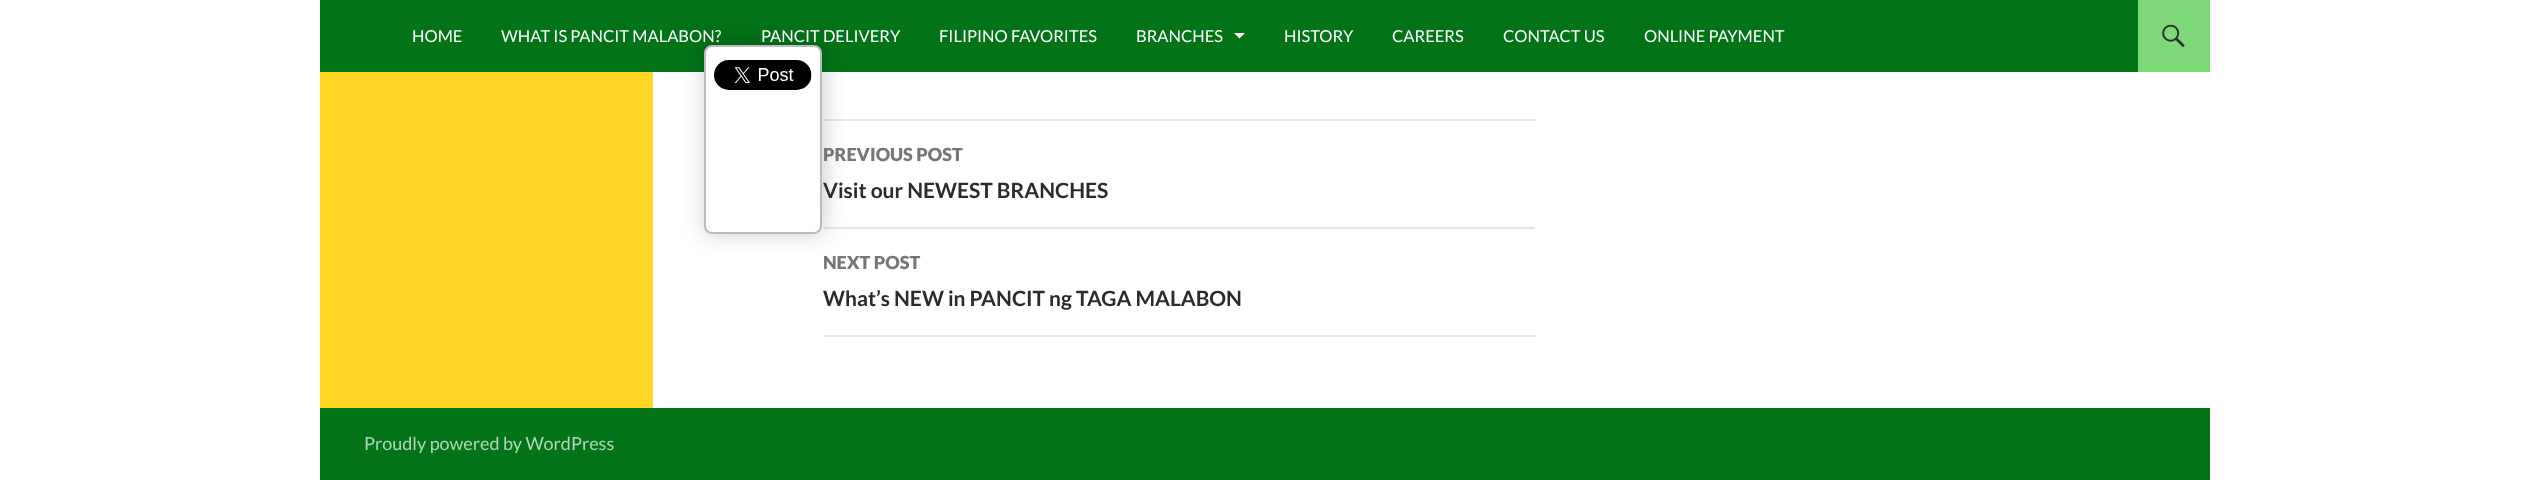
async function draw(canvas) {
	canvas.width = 2527;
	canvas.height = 480;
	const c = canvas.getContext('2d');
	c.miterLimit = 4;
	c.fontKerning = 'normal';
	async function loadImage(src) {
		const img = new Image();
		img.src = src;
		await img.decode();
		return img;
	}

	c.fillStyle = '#fff';
	c.fillRect(0, 0, 2527, 480);
	for (const [x, y, w, h, color] of [
		[320, 0, 1818, 72, '#037317'],
		[824, 119, 711, 2, '#e6e6e6'],
		[824, 227, 711, 2, '#e6e6e6'],
	]) {
		c.fillStyle = color;
		c.fillRect(x, y, w, h);
	}
	c.fillStyle = '#00000033';
	c.filter = 'blur(11px)';
	c.beginPath();
	c.roundRect(705, 45, 119, 189, 8);
	c.fill();
	c.filter = 'none';
	c.fillStyle = '#fff';
	c.beginPath();
	c.roundRect(705, 46, 116, 187, 7);
	c.fill();
	c.strokeStyle = '#bbb';
	c.lineWidth = 2;
	c.stroke();
	c.drawImage(await loadImage('img1.png'), 714, 60, 98, 30);
	c.font = '16.5px Lato';
	for (const [text, x, y] of [
		['HOME', 412, 42],
		['WHAT IS PANCIT MALABON?', 501, 42],
		['PANCIT DELIVERY', 761, 42],
		['FILIPINO FAVORITES', 939, 42],
		['BRANCHES', 1136, 42],
	]) {
		c.fillText(text, x, y);
	}
	c.beginPath();
	c.moveTo(1234, 33);
	c.lineTo(1239.5, 38.5);
	c.lineTo(1245, 33);
	c.closePath();
	c.fill();
	for (const [text, x, y] of [
		['HISTORY', 1284, 42],
		['CAREERS', 1392, 42],
		['CONTACT US', 1503, 42],
		['ONLINE PAYMENT', 1644, 42],
	]) {
		c.fillText(text, x, y);
	}
	c.fillStyle = '#7dd877';
	c.fillRect(2138, 0, 72, 72);
	c.drawImage(await loadImage('img2.png'), 2162, 24, 23, 24);
	c.fillStyle = '#ffd623';
	c.fillRect(320, 72, 333, 336);
	c.font = '900 18px Lato';
	c.fillStyle = '#767676';
	c.fillText('PREVIOUS POST', 823, 161);
	c.font = 'bold 21px Lato';
	c.fillStyle = '#2b2b2b';
	c.fillText('Visit our NEWEST BRANCHES', 823, 198);
	c.fillStyle = '#e6e6e6';
	c.fillRect(824, 335, 711, 2);
	c.font = '900 18px Lato';
	c.fillStyle = '#767676';
	c.fillText('NEXT POST', 823, 269);
	c.font = 'bold 21px Lato';
	c.fillStyle = '#2b2b2b';
	c.fillText('What’s NEW in PANCIT ng TAGA MALABON', 823, 306);
	c.fillStyle = '#037317';
	c.fillRect(320, 408, 1890, 72);
	c.font = '18px Lato';
	c.fillStyle = '#b3d5b9';
	c.fillText('Proudly powered by WordPress', 364, 450);
}

draw(document.querySelector('canvas'));
